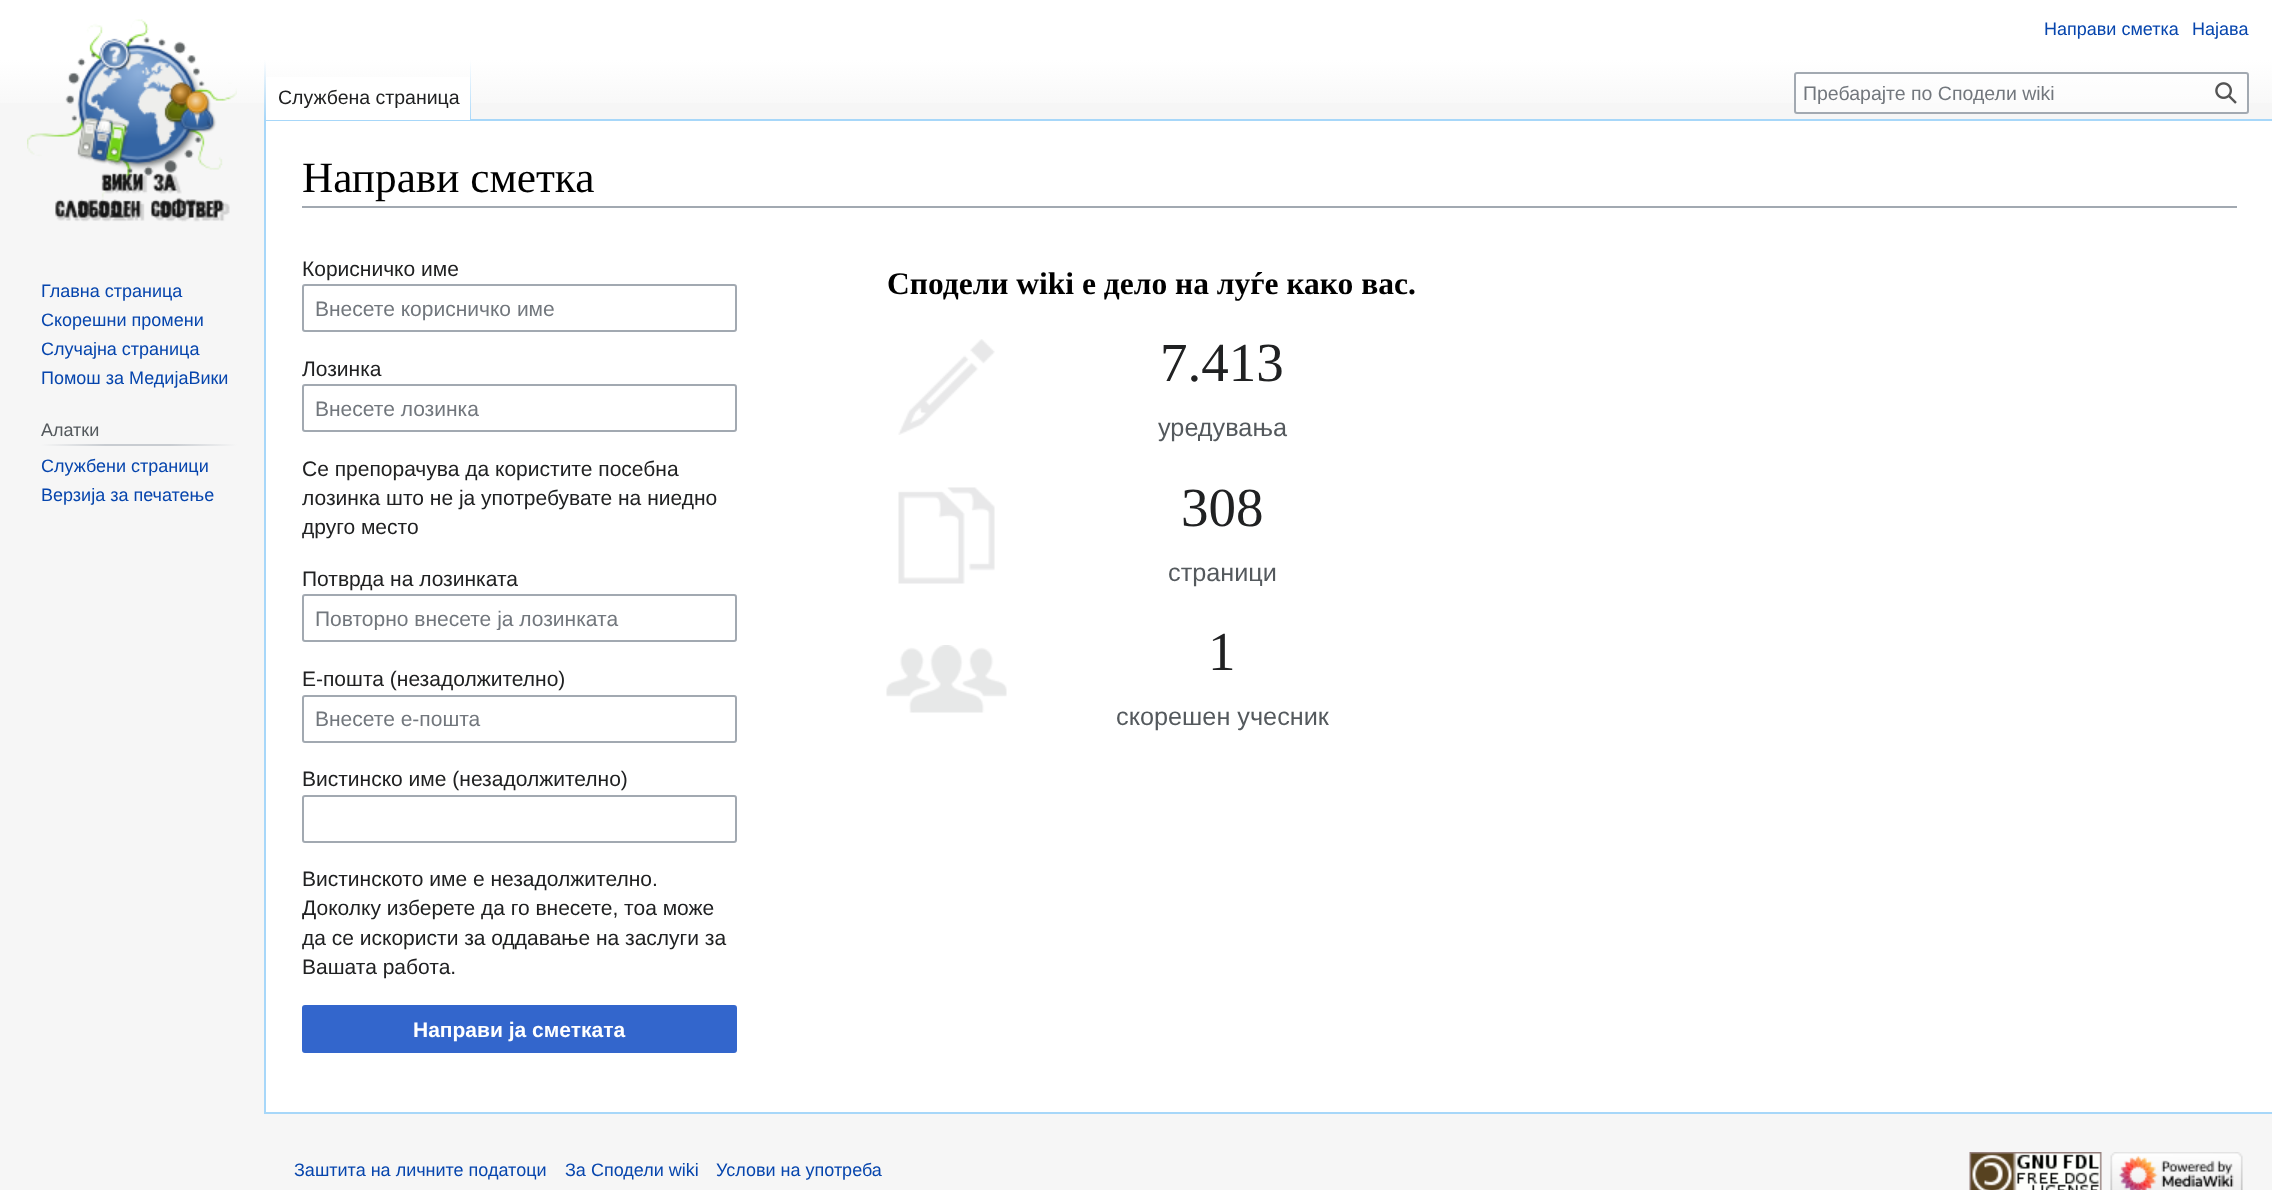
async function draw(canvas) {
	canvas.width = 2272;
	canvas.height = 1190;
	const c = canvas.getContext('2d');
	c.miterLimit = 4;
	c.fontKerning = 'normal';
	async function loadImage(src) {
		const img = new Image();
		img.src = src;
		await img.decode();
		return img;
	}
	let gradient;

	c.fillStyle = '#f6f6f6';
	c.fillRect(0, 0, 2272, 1190);
	gradient = c.createLinearGradient(1136, 0, 1136, 120);
	gradient.addColorStop(0.5, '#fff');
	gradient.addColorStop(1, '#f6f6f6');
	c.fillStyle = gradient;
	c.fillRect(0, 0, 2272, 103);
	c.font = '18px Liberation Sans';
	c.fillStyle = '#0645ad';
	c.fillText('Направи сметка', 2044, 35);
	c.fillText('Најава', 2192, 35);
	for (const [x, y, w, h, color] of [
		[264, 119, 2008, 2, '#a7d7f9'],
		[264, 1112, 2008, 2, '#a7d7f9'],
		[264, 119, 2, 994, '#a7d7f9'],
	]) {
		c.fillStyle = color;
		c.fillRect(x, y, w, h);
	}
	gradient = c.createLinearGradient(265, 60, 265, 120);
	gradient.addColorStop(0, '#a7d7f900');
	gradient.addColorStop(1, '#a7d7f9');
	c.fillStyle = gradient;
	c.fillRect(264, 60, 2, 60);
	c.fillStyle = '#fff';
	c.fillRect(266, 77, 204, 43);
	gradient = c.createLinearGradient(470, 60, 470, 120);
	gradient.addColorStop(0, '#fff');
	gradient.addColorStop(1, '#a7d7f9');
	c.fillStyle = gradient;
	c.fillRect(470, 60, 1, 60);
	c.font = '19.5px Liberation Sans';
	c.fillStyle = '#202122';
	c.fillText('Службена страница', 278, 104);
	c.fillStyle = '#ffffff80';
	c.beginPath();
	c.roundRect(1795, 73, 453, 40, 2);
	c.fill();
	c.strokeStyle = '#a2a9b1';
	c.lineWidth = 2;
	c.stroke();
	c.fillStyle = '#72777d';
	c.fillText('Пребарајте по Сподели wiki', 1803, 100);
	c.drawImage(await loadImage('img1.png'), 2215, 82, 22, 22);
	c.drawImage(await loadImage('img2.png'), 27, 19, 210, 203);
	c.font = '18px Liberation Sans';
	c.fillStyle = '#0645ad';
	for (const [text, x, y] of [
		['Главна страница', 41, 297],
		['Скорешни промени', 41, 326],
		['Случајна страница', 41, 355],
		['Помош за МедијаВики', 41, 384],
	]) {
		c.fillText(text, x, y);
	}
	gradient = c.createLinearGradient(41, 445, 237, 445);
	gradient.addColorStop(0, '#f6f6f6');
	gradient.addColorStop(0.33, '#c8ccd1');
	gradient.addColorStop(0.66, '#c8ccd1');
	gradient.addColorStop(1, '#f6f6f6');
	c.fillStyle = gradient;
	c.fillRect(41, 444, 196, 2);
	c.fillStyle = '#54595d';
	c.fillText('Алатки', 41, 436);
	c.fillStyle = '#0645ad';
	c.fillText('Службени страници', 41, 472);
	c.fillText('Верзија за печатење', 41, 501);
	c.fillStyle = '#fff';
	c.fillRect(266, 121, 2006, 991);
	c.fillStyle = '#a2a9b1';
	c.fillRect(302, 206, 1935, 2);
	c.font = '43.25px Liberation Serif';
	c.fillStyle = '#000';
	c.fillText('Направи сметка', 302, 192);
	c.font = '21px Liberation Sans';
	c.fillStyle = '#202122';
	c.fillText('Корисничко име', 302, 276);
	c.beginPath();
	c.roundRect(303, 285, 433, 46, 2);
	c.stroke();
	c.fillStyle = '#72777d';
	c.fillText('Внесете корисничко име', 315, 316);
	c.fillStyle = '#202122';
	c.fillText('Лозинка', 302, 376);
	c.beginPath();
	c.roundRect(303, 385, 433, 46, 2);
	c.stroke();
	c.fillStyle = '#72777d';
	c.fillText('Внесете лозинка', 315, 416);
	c.fillStyle = '#202122';
	for (const [text, x, y] of [
		['Се препорачува да користите посебна', 302, 476],
		['лозинка што не ја употребувате на ниедно', 302, 505],
		['друго место', 302, 534],
		['Потврда на лозинката', 302, 586],
	]) {
		c.fillText(text, x, y);
	}
	c.beginPath();
	c.roundRect(303, 595, 433, 46, 2);
	c.stroke();
	c.save();
	c.beginPath();
	c.rect(315, 606, 408, 24);
	c.clip();
	c.fillStyle = '#72777d';
	c.fillText('Повторно внесете ја лозинката', 315, 626);
	c.restore();
	c.fillText('Е-пошта (незадолжително)', 302, 686);
	c.beginPath();
	c.roundRect(303, 696, 433, 46, 2);
	c.stroke();
	c.fillStyle = '#72777d';
	c.fillText('Внесете е-пошта', 315, 726);
	c.fillStyle = '#202122';
	c.fillText('Вистинско име (незадолжително)', 302, 786);
	c.beginPath();
	c.roundRect(303, 796, 433, 46, 2);
	c.stroke();
	for (const [text, x, y] of [
		['Вистинското име е незадолжително.', 302, 886],
		['Доколку изберете да го внесете, тоа може', 302, 915],
		['да се искористи за оддавање на заслуги за', 302, 945],
		['Вашата работа.', 302, 974],
	]) {
		c.fillText(text, x, y);
	}
	c.fillStyle = '#36c';
	c.beginPath();
	c.roundRect(303, 1006, 433, 46, 2);
	c.fill();
	c.strokeStyle = '#36c';
	c.stroke();
	c.font = 'bold 21px Liberation Sans';
	c.fillStyle = '#fff';
	c.fillText('Направи ја сметката', 413, 1037);
	c.font = 'bold 31.5px Liberation Serif';
	c.fillStyle = '#000';
	c.fillText('Сподели wiki е дело на луѓе како вас.', 887, 294);
	c.drawImage(await loadImage('img3.png'), 898, 339, 97, 96);
	c.font = '55px Liberation Serif';
	c.fillStyle = '#202122';
	c.fillText('7.413', 1160, 381);
	c.font = '25.25px Liberation Sans';
	c.fillStyle = '#54595d';
	c.fillText('уредувања', 1158, 436);
	c.drawImage(await loadImage('img4.png'), 898, 487, 97, 97);
	c.font = '55px Liberation Serif';
	c.fillStyle = '#202122';
	c.fillText('308', 1181, 526);
	c.font = '25.25px Liberation Sans';
	c.fillStyle = '#54595d';
	c.fillText('страници', 1168, 581);
	c.drawImage(await loadImage('img5.png'), 886, 645, 121, 68);
	c.font = '55px Liberation Serif';
	c.fillStyle = '#202122';
	c.fillText('1', 1208, 670);
	c.font = '25.25px Liberation Sans';
	c.fillStyle = '#54595d';
	c.fillText('скорешен учесник', 1116, 725);
	c.font = '18px Liberation Sans';
	c.fillStyle = '#0645ad';
	for (const [text, x, y] of [
		['Заштита на личните податоци', 294, 1176],
		['За Сподели wiki', 565, 1176],
		['Услови на употреба', 716, 1176],
	]) {
		c.fillText(text, x, y);
	}
	c.drawImage(await loadImage('img6.png'), 1969, 1152, 133, 38);
	c.drawImage(await loadImage('img7.png'), 2110, 1152, 133, 38);
}

draw(document.querySelector('canvas'));
